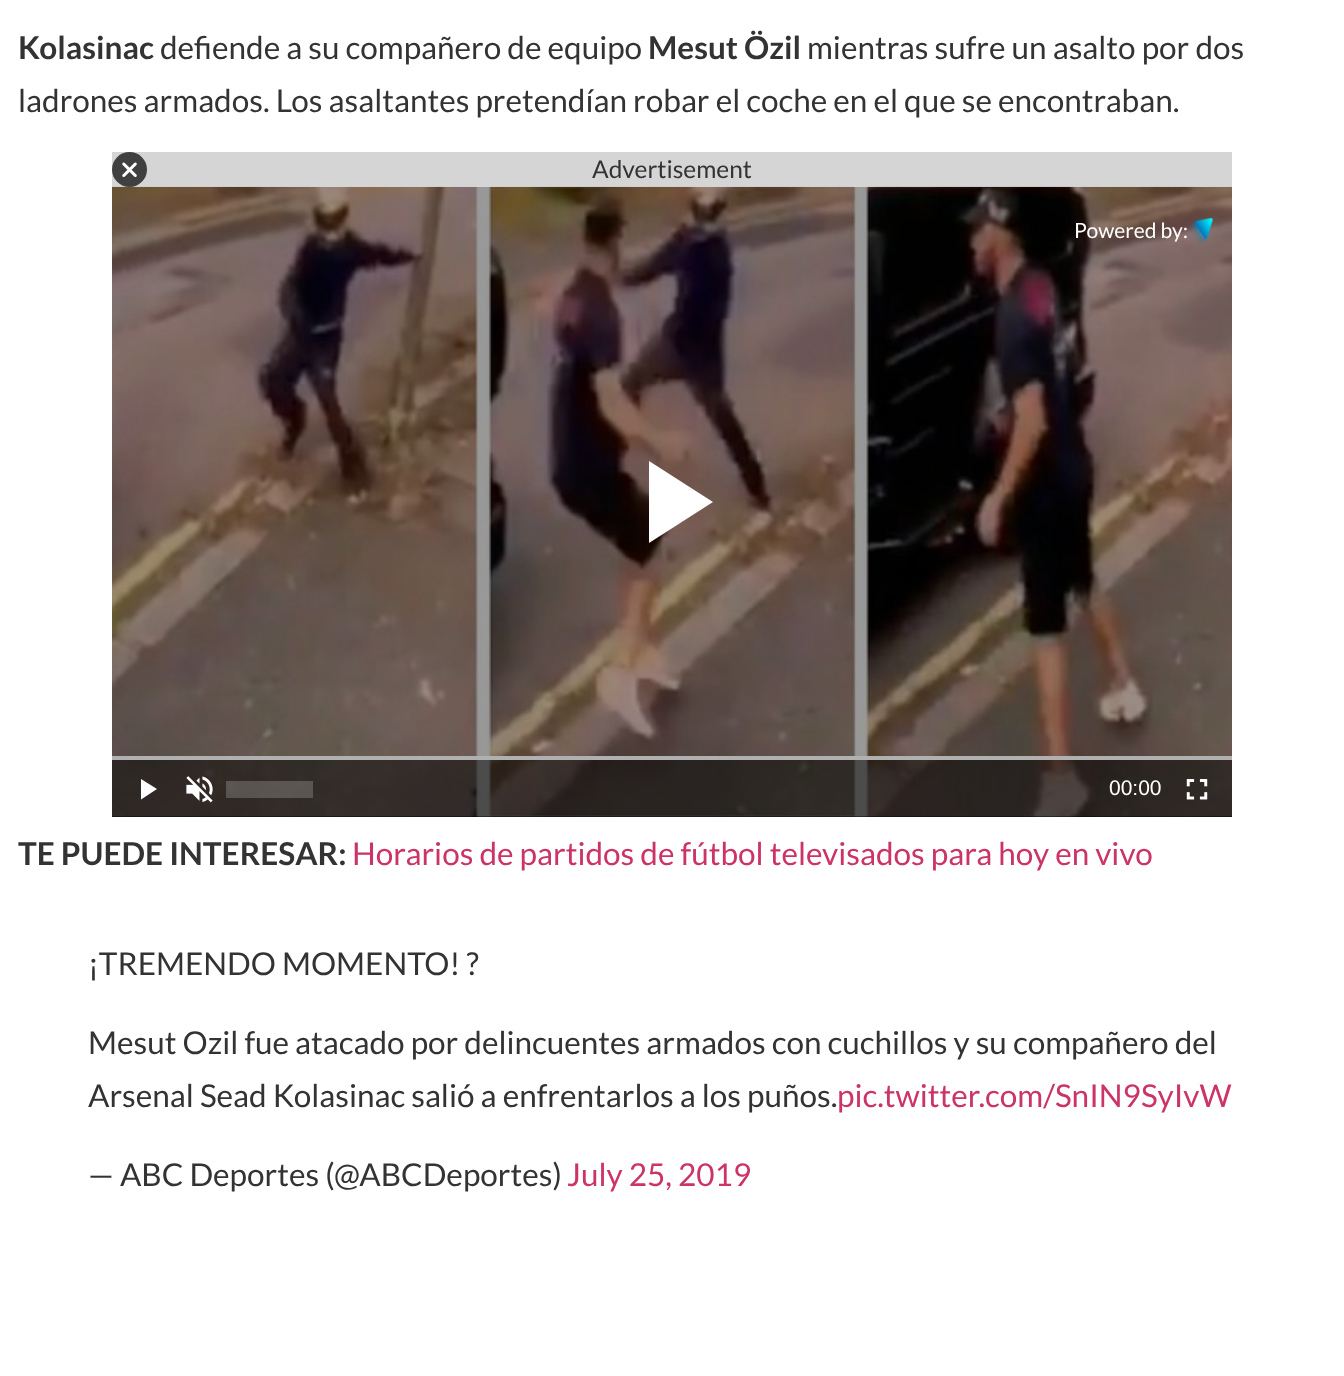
async function draw(canvas) {
	canvas.width = 1344;
	canvas.height = 1376;
	const c = canvas.getContext('2d');
	c.miterLimit = 4;
	c.fontKerning = 'normal';
	async function loadImage(src) {
		const img = new Image();
		img.src = src;
		await img.decode();
		return img;
	}

	c.fillStyle = '#fff';
	c.fillRect(0, 0, 1344, 1376);
	c.font = 'bold 31.5px Lato';
	c.fillStyle = '#333';
	c.fillText('Kolasinac', 18, 59);
	c.font = '31.5px Lato';
	c.fillText('defiende a su compañero de equipo', 160, 59);
	c.font = 'bold 31.5px Lato';
	c.fillText('Mesut Özil', 648, 59);
	c.font = '31.5px Lato';
	c.fillText('mientras sufre un asalto por dos', 807, 59);
	c.fillText('ladrones armados. Los asaltantes pretendían robar el coche en el que se encontraban.', 18, 112);
	c.fillStyle = '#d5d5d5';
	c.fillRect(112, 152, 1120, 35);
	c.fillStyle = '#404040';
	c.beginPath();
	c.arc(129.5, 169.5, 17.5, 0, 2 * Math.PI);
	c.fill();
	c.drawImage(await loadImage('img1.png'), 122, 162, 15, 15);
	c.font = '24.5px Lato';
	c.fillStyle = '#333';
	c.fillText('Advertisement', 592, 178);
	c.fillStyle = '#000';
	c.fillRect(112, 816, 1120, 1);
	c.drawImage(await loadImage('img2.png'), 112, 186, 1120, 631);
	c.font = '21px Lato';
	c.fillStyle = '#fff';
	c.fillText('Powered by:', 1074, 238);
	c.drawImage(await loadImage('img3.png'), 1189, 218, 24, 27);
	c.beginPath();
	c.moveTo(649, 461);
	c.lineTo(649, 543);
	c.lineTo(713, 502);
	c.closePath();
	c.fill();
	c.fillStyle = '#b0b0b0';
	c.fillRect(112, 756, 1120, 4);
	c.fillStyle = '#00000080';
	c.fillRect(112, 760, 1120, 57);
	c.fillStyle = '#fff';
	c.beginPath();
	c.moveTo(141, 779);
	c.lineTo(141, 799.5);
	c.lineTo(157, 789);
	c.closePath();
	c.fill();
	c.drawImage(await loadImage('img4.png'), 186, 776, 27, 27);
	c.fillStyle = '#ffffff33';
	c.fillRect(226, 781, 87, 17);
	c.font = '21px Liberation Sans';
	c.fillStyle = '#fff';
	c.fillText('00:00', 1109, 795);
	c.drawImage(await loadImage('img5.png'), 1186, 779, 22, 21);
	c.font = 'bold 31.5px Lato';
	c.fillStyle = '#333';
	c.fillText('TE PUEDE INTERESAR:', 18, 865);
	c.font = '31.5px Lato';
	c.fillStyle = '#c36';
	c.fillText('Horarios de partidos de fútbol televisados para hoy en vivo', 352, 865);
	c.fillStyle = '#333';
	for (const [text, x, y] of [
		['¡TREMENDO MOMENTO! ?', 88, 975],
		['Mesut Ozil fue atacado por delincuentes armados con cuchillos y su compañero del', 88, 1054],
		['Arsenal Sead Kolasinac salió a enfrentarlos a los puños.', 88, 1107],
	]) {
		c.fillText(text, x, y);
	}
	c.fillStyle = '#c36';
	c.fillText('pic.twitter.com/SnIN9SyIvW', 837, 1107);
	c.fillStyle = '#333';
	c.fillText('— ABC Deportes (@ABCDeportes)', 88, 1186);
	c.fillStyle = '#c36';
	c.fillText('July 25, 2019', 567, 1186);
}

draw(document.querySelector('canvas'));
